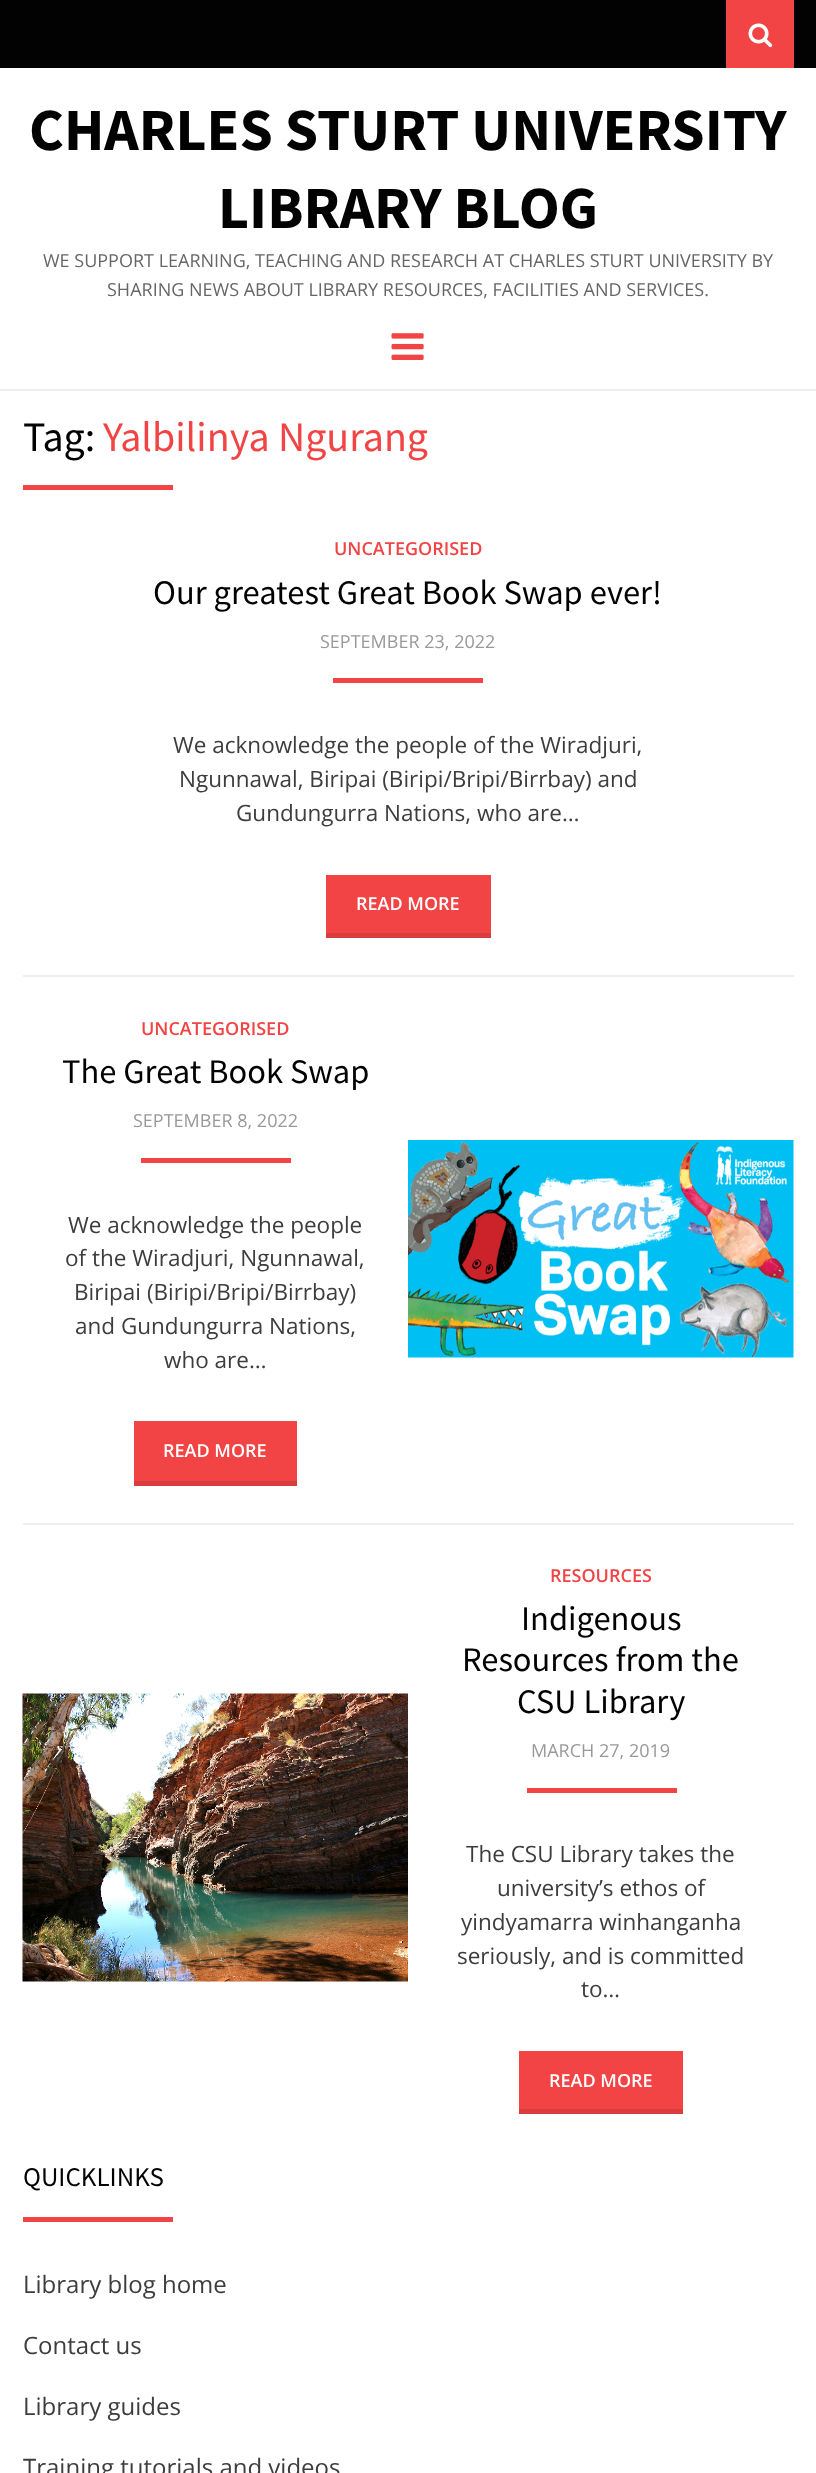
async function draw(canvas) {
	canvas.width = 816;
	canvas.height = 2473;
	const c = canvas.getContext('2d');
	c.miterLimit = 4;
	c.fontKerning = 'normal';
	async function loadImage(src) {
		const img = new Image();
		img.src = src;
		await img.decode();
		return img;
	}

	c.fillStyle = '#fff';
	c.fillRect(0, 0, 816, 2473);
	c.fillStyle = '#020202';
	c.fillRect(0, 0, 816, 68);
	c.fillStyle = '#f24444';
	c.fillRect(726, 0, 68, 68);
	c.drawImage(await loadImage('img1.png'), 748, 23, 25, 25);
	c.fillStyle = '#eee';
	c.fillRect(0, 389, 816, 2);
	c.font = 'bold 60px Source Sans Pro';
	c.fillStyle = '#020202';
	c.fillText('CHARLES STURT UNIVERSITY', 29, 150);
	c.fillText('LIBRARY BLOG', 218, 228);
	c.font = '18px Open Sans';
	c.fillStyle = '#666';
	c.fillText('WE SUPPORT LEARNING, TEACHING AND RESEARCH AT CHARLES STURT UNIVERSITY BY', 43, 267);
	c.fillText('SHARING NEWS ABOUT LIBRARY RESOURCES, FACILITIES AND SERVICES.', 107, 296);
	c.drawImage(await loadImage('img2.png'), 391, 333, 33, 27);
	c.font = '42px Source Sans Pro';
	c.fillStyle = '#020202';
	c.fillText('Tag:', 23, 451);
	c.fillStyle = '#f24444';
	c.fillText('Yalbilinya Ngurang', 103, 451);
	c.fillRect(23, 485, 150, 5);
	c.fillStyle = '#eee';
	c.fillRect(23, 975, 771, 2);
	c.font = '600 18px Open Sans';
	c.fillStyle = '#f24444';
	c.fillText('UNCATEGORISED', 334, 555);
	c.font = '34.5px Source Sans Pro';
	c.fillStyle = '#020202';
	c.fillText('Our greatest Great Book Swap ever!', 153, 604);
	c.font = '18px Open Sans';
	c.fillStyle = '#999';
	c.fillText('SEPTEMBER 23, 2022', 320, 648);
	c.fillStyle = '#f24444';
	c.fillRect(333, 678, 150, 5);
	c.font = '22.5px Open Sans';
	c.fillStyle = '#3d3d3d';
	for (const [text, x, y] of [
		['We acknowledge the people of the Wiradjuri,', 173, 753],
		['Ngunnawal, Biripai (Biripi/Bripi/Birrbay) and', 179, 787],
		['Gundungurra Nations, who are…', 236, 821],
	]) {
		c.fillText(text, x, y);
	}
	c.fillStyle = '#f24444';
	c.fillRect(326, 875, 165, 58);
	c.fillStyle = '#d93d3d';
	c.fillRect(326, 933, 165, 5);
	c.font = '600 18px Open Sans';
	c.fillStyle = '#fff';
	c.fillText('READ MORE', 356, 910);
	c.fillStyle = '#eee';
	c.fillRect(23, 1523, 771, 2);
	c.fillStyle = '#f24444';
	c.fillText('UNCATEGORISED', 141, 1035);
	c.font = '34.5px Source Sans Pro';
	c.fillStyle = '#020202';
	c.fillText('The Great Book Swap', 62, 1083);
	c.font = '18px Open Sans';
	c.fillStyle = '#999';
	c.fillText('SEPTEMBER 8, 2022', 133, 1127);
	c.fillStyle = '#f24444';
	c.fillRect(141, 1158, 150, 5);
	c.font = '22.5px Open Sans';
	c.fillStyle = '#3d3d3d';
	for (const [text, x, y] of [
		['We acknowledge the people', 68, 1233],
		['of the Wiradjuri, Ngunnawal,', 65, 1266],
		['Biripai (Biripi/Bripi/Birrbay)', 74, 1300],
		['and Gundungurra Nations,', 75, 1334],
		['who are…', 164, 1368],
	]) {
		c.fillText(text, x, y);
	}
	c.fillStyle = '#f24444';
	c.fillRect(134, 1421, 163, 60);
	c.fillStyle = '#d93d3d';
	c.fillRect(134, 1481, 163, 5);
	c.font = '600 18px Open Sans';
	c.fillStyle = '#fff';
	c.fillText('READ MORE', 163, 1457);
	c.drawImage(await loadImage('img3.png'), 408, 1140, 386, 218);
	c.drawImage(await loadImage('img4.png'), 22, 1693, 386, 289);
	c.fillStyle = '#f24444';
	c.fillText('RESOURCES', 550, 1582);
	c.font = '34.5px Source Sans Pro';
	c.fillStyle = '#020202';
	for (const [text, x, y] of [
		['Indigenous', 521, 1630],
		['Resources from the', 462, 1671],
		['CSU Library', 517, 1713],
	]) {
		c.fillText(text, x, y);
	}
	c.font = '18px Open Sans';
	c.fillStyle = '#999';
	c.fillText('MARCH 27, 2019', 531, 1757);
	c.fillStyle = '#f24444';
	c.fillRect(527, 1788, 150, 5);
	c.font = '22.5px Open Sans';
	c.fillStyle = '#3d3d3d';
	for (const [text, x, y] of [
		['The CSU Library takes the', 466, 1862],
		['university’s ethos of', 497, 1896],
		['yindyamarra winhanganha', 461, 1930],
		['seriously, and is committed', 457, 1964],
		['to…', 581, 1997],
	]) {
		c.fillText(text, x, y);
	}
	c.fillStyle = '#f24444';
	c.fillRect(519, 2051, 164, 58);
	c.fillStyle = '#d93d3d';
	c.fillRect(519, 2109, 164, 5);
	c.font = '600 18px Open Sans';
	c.fillStyle = '#fff';
	c.fillText('READ MORE', 549, 2087);
	c.font = '27px Source Sans Pro';
	c.fillStyle = '#020202';
	c.fillText('QUICKLINKS', 23, 2186);
	c.fillStyle = '#f24444';
	c.fillRect(23, 2217, 150, 5);
	c.font = '24px Open Sans';
	c.fillStyle = '#3d3d3d';
	for (const [text, x, y] of [
		['Library blog home', 23, 2293],
		['Contact us', 23, 2354],
		['Library guides', 23, 2415],
		['Training tutorials and videos', 23, 2476],
	]) {
		c.fillText(text, x, y);
	}
}

draw(document.querySelector('canvas'));
